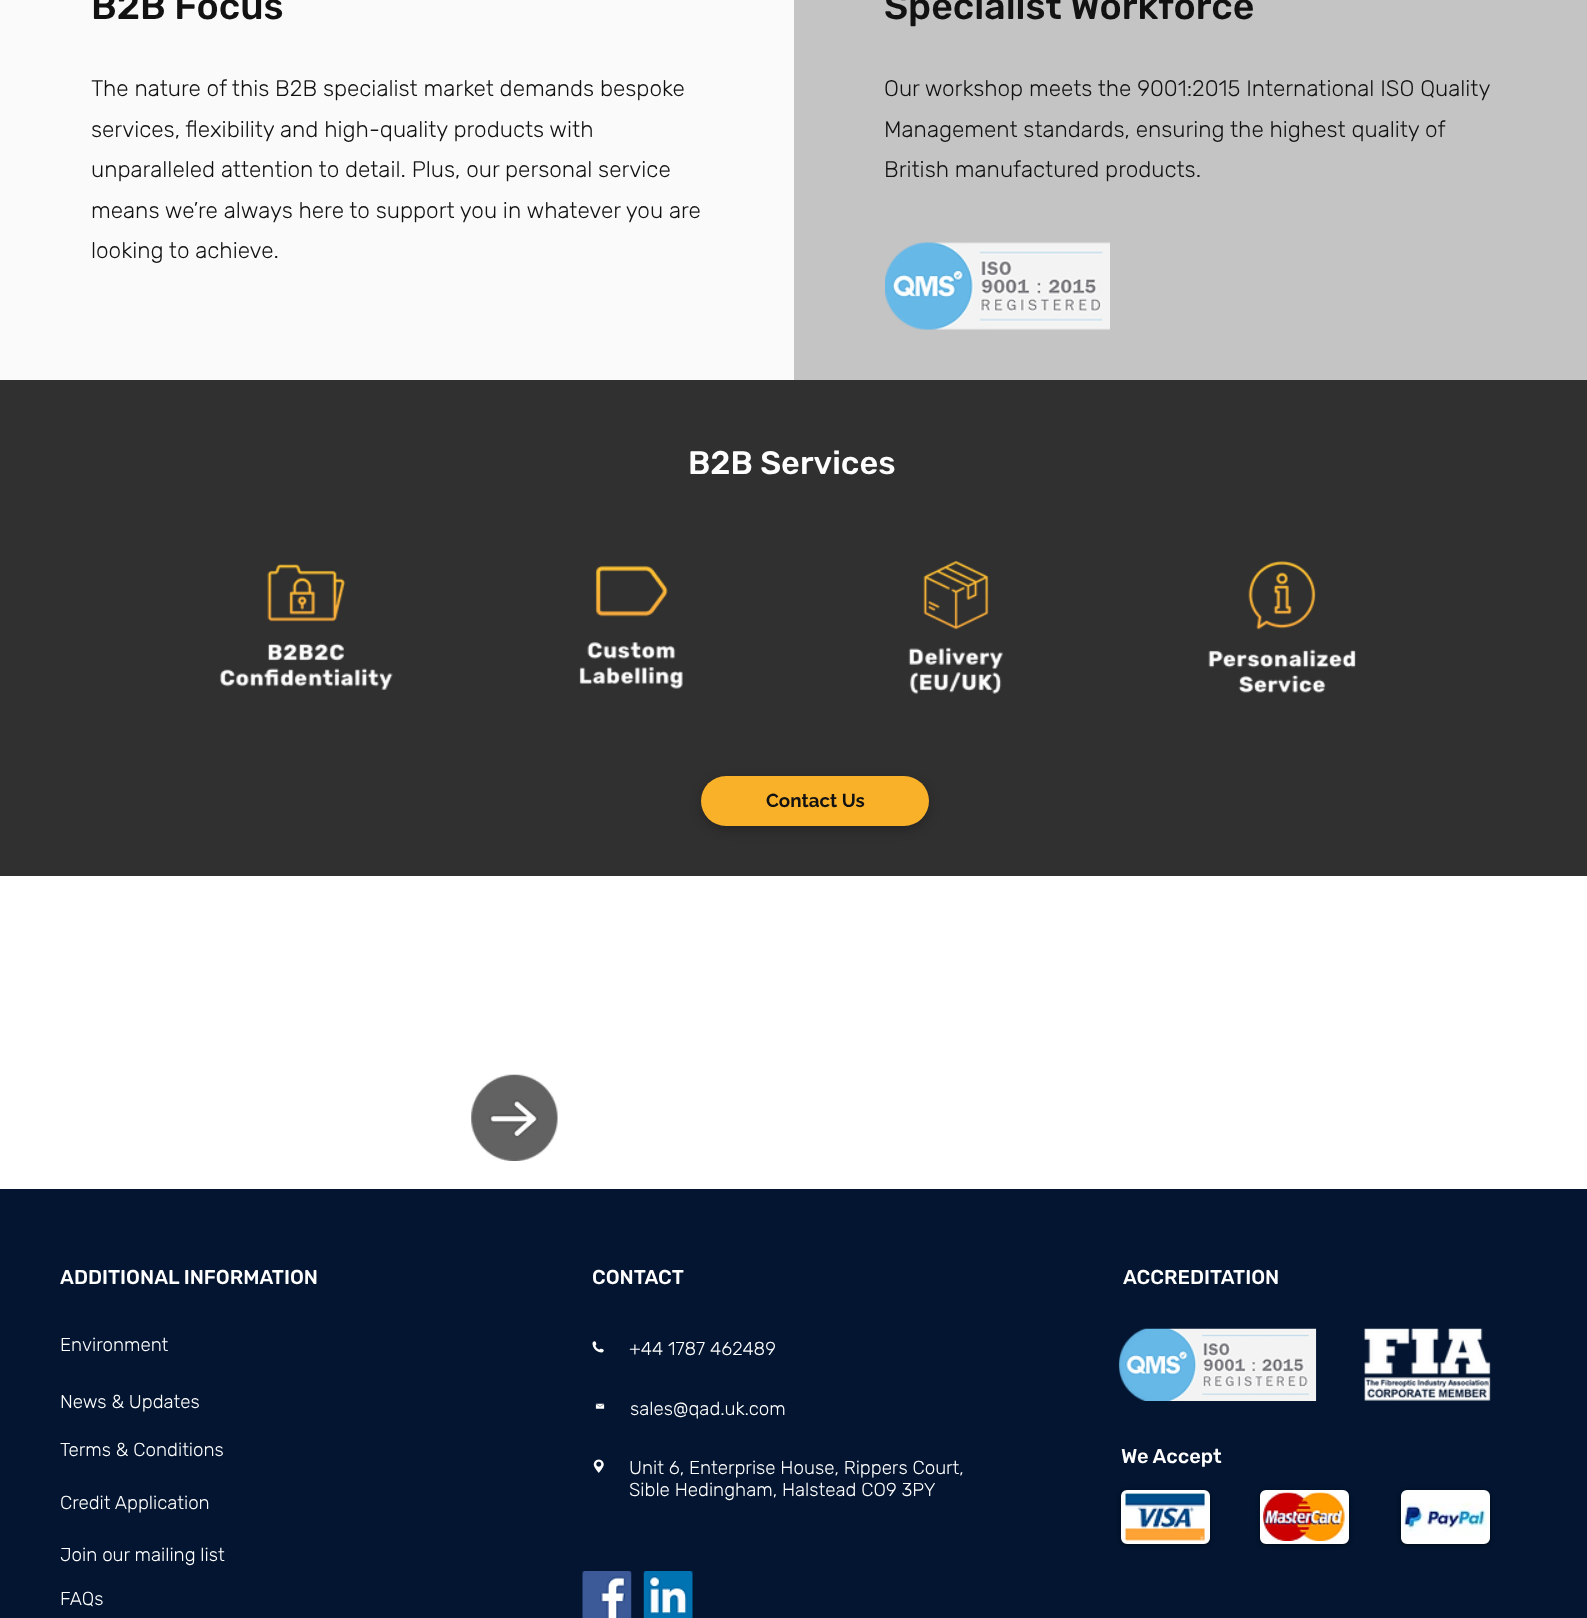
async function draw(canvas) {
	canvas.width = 1587;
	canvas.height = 1618;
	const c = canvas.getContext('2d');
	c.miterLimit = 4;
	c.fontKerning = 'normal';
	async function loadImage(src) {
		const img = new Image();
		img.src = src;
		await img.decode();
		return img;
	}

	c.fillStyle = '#fff';
	c.fillRect(0, 0, 1587, 1618);
	c.fillStyle = '#fafafa';
	c.fillRect(0, 0, 794, 380);
	c.font = '500 37.5px Rubik';
	c.fillStyle = '#121212';
	c.fillText('B2B Focus', 91, 19);
	c.font = '300 22.5px Rubik';
	for (const [text, x, y] of [
		['The nature of this B2B specialist market demands bespoke', 91, 96],
		['services, flexibility and high-quality products with', 91, 137],
		['unparalleled attention to detail. Plus, our personal service', 91, 177],
		['means we’re always here to support you in whatever you are', 91, 218],
		['looking to achieve.', 91, 258],
	]) {
		c.fillText(text, x, y);
	}
	c.fillStyle = '#c4c4c4';
	c.fillRect(794, 0, 793, 380);
	c.font = '500 37.5px Rubik';
	c.fillStyle = '#121212';
	c.fillText('Specialist Workforce', 884, 19);
	c.font = '300 22.5px Rubik';
	for (const [text, x, y] of [
		['Our workshop meets the 9001:2015 International ISO Quality', 884, 96],
		['Management standards, ensuring the highest quality of', 884, 137],
		['British manufactured products.', 884, 177],
	]) {
		c.fillText(text, x, y);
	}
	c.drawImage(await loadImage('img1.png'), 885, 242, 225, 88);
	c.fillStyle = '#303030';
	c.fillRect(0, 380, 1587, 496);
	c.font = '500 32.5px Rubik';
	c.fillStyle = '#fff';
	c.fillText('B2B Services', 688, 474);
	c.drawImage(await loadImage('img2.png'), 219, 564, 174, 126);
	c.drawImage(await loadImage('img3.png'), 579, 565, 104, 124);
	c.drawImage(await loadImage('img4.png'), 908, 560, 95, 134);
	c.drawImage(await loadImage('img5.png'), 1208, 561, 148, 132);
	c.fillStyle = '#0000003b';
	c.filter = 'blur(5.5px)';
	c.beginPath();
	c.roundRect(701, 780, 228, 50, 25);
	c.fill();
	c.filter = 'none';
	c.fillStyle = '#fab12a';
	c.beginPath();
	c.roundRect(701, 776, 228, 50, 25);
	c.fill();
	c.font = 'bold 18.75px Raleway';
	c.fillStyle = '#121212';
	c.fillText('Contact Us', 766, 807);
	c.drawImage(await loadImage('img6.png'), 471, 1074, 87, 87);
	c.fillStyle = '#031530';
	c.fillRect(0, 1189, 1587, 429);
	c.font = '500 20px Rubik';
	c.fillStyle = '#fff';
	c.fillText('ADDITIONAL INFORMATION', 60, 1284);
	c.font = '300 18.75px Rubik';
	for (const [text, x, y] of [
		['Environment', 60, 1351],
		['News & Updates', 60, 1408],
		['Terms & Conditions', 60, 1456],
		['Credit Application', 60, 1509],
		['Join our mailing list', 60, 1561],
		['FAQs', 60, 1605],
	]) {
		c.fillText(text, x, y);
	}
	c.font = '500 20px Rubik';
	c.fillText('CONTACT', 592, 1284);
	c.drawImage(await loadImage('img7.png'), 592, 1341, 12, 12);
	c.font = '300 18.75px Rubik';
	c.fillText('+44 1787 462489', 629, 1355);
	c.drawImage(await loadImage('img8.png'), 595, 1403, 10, 6);
	c.fillText('sales@qad.uk.com', 630, 1415);
	c.drawImage(await loadImage('img9.png'), 593, 1459, 11, 14);
	c.fillText('Unit 6, Enterprise House, Rippers Court,', 629, 1474);
	c.fillText('Sible Hedingham, Halstead CO9 3PY', 629, 1496);
	c.drawImage(await loadImage('img10.png'), 582, 1571, 50, 47);
	c.drawImage(await loadImage('img11.png'), 643, 1571, 50, 47);
	c.font = '500 20px Rubik';
	c.fillText('ACCREDITATION', 1123, 1284);
	c.drawImage(await loadImage('img12.png'), 1118, 1328, 199, 73);
	c.drawImage(await loadImage('img13.png'), 1364, 1328, 127, 73);
	c.fillText('We Accept', 1121, 1463);
	c.fillStyle = '#00000080';
	c.filter = 'blur(2px)';
	c.beginPath();
	c.roundRect(1121, 1491, 89, 54, 6);
	c.fill();
	c.filter = 'none';
	c.fillStyle = '#fff';
	c.beginPath();
	c.roundRect(1122.5, 1491.5, 86, 51, 4.5);
	c.fill();
	c.strokeStyle = '#fff';
	c.lineWidth = 3;
	c.stroke();
	c.drawImage(await loadImage('img14.png'), 1124, 1493, 81, 48);
	c.fillStyle = '#00000080';
	c.filter = 'blur(2px)';
	c.beginPath();
	c.roundRect(1260, 1491, 89, 54, 6);
	c.fill();
	c.filter = 'none';
	c.fillStyle = '#fff';
	c.beginPath();
	c.roundRect(1261.5, 1491.5, 86, 51, 4.5);
	c.fill();
	c.stroke();
	c.drawImage(await loadImage('img15.png'), 1263, 1492, 82, 49);
	c.fillStyle = '#00000080';
	c.filter = 'blur(2px)';
	c.beginPath();
	c.roundRect(1401, 1491, 89, 54, 6);
	c.fill();
	c.filter = 'none';
	c.fillStyle = '#fff';
	c.beginPath();
	c.roundRect(1402.5, 1491.5, 86, 51, 4.5);
	c.fill();
	c.stroke();
	c.drawImage(await loadImage('img16.png'), 1404, 1503, 83, 34);
}

draw(document.querySelector('canvas'));
